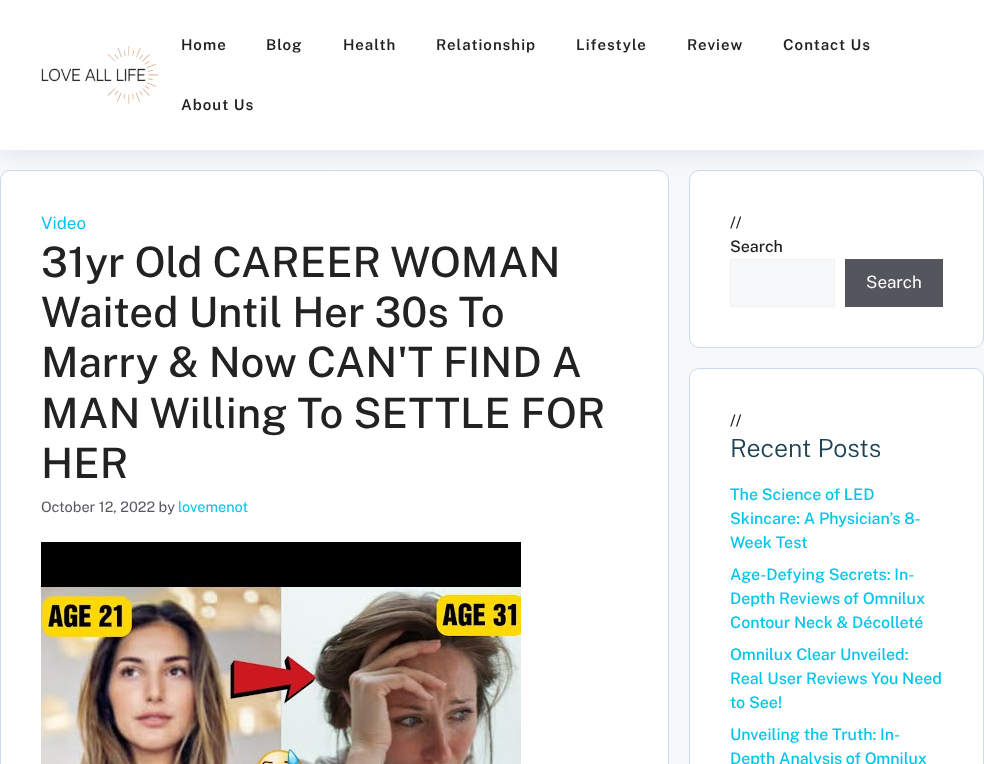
async function draw(canvas) {
	canvas.width = 984;
	canvas.height = 764;
	const c = canvas.getContext('2d');
	c.miterLimit = 4;
	c.fontKerning = 'normal';
	async function loadImage(src) {
		const img = new Image();
		img.src = src;
		await img.decode();
		return img;
	}

	c.fillStyle = '#f7f8f9';
	c.fillRect(0, 0, 984, 764);
	c.fillStyle = '#fff';
	c.beginPath();
	c.roundRect(0.5, 170.5, 668, 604, 9.5);
	c.fill();
	c.strokeStyle = '#cdd9ec';
	c.stroke();
	c.beginPath();
	c.roundRect(689.5, 170.5, 294, 177, 9.5);
	c.fill();
	c.stroke();
	c.fillStyle = '#0747a01a';
	c.filter = 'blur(12.5px)';
	c.beginPath();
	c.rect(0, 4, 984, 150);
	c.fill();
	c.filter = 'none';
	c.fillStyle = '#fff';
	c.fillRect(0, 0, 984, 150);
	c.drawImage(await loadImage('img1.png'), 41, 46, 118, 58);
	c.letterSpacing = '1px';
	c.font = '600 15px Public Sans';
	c.fillStyle = '#222';
	for (const [text, x, y] of [
		['Home', 181, 50],
		['Blog', 266, 50],
		['Health', 343, 50],
		['Relationship', 436, 50],
		['Lifestyle', 576, 50],
		['Review', 687, 50],
		['Contact Us', 783, 50],
		['About Us', 181, 110],
	]) {
		c.fillText(text, x, y);
	}
	c.letterSpacing = '0px';
	c.font = '17px Public Sans';
	c.fillStyle = '#03c4eb';
	c.fillText('Video', 41, 229);
	c.font = '500 42px Public Sans';
	c.fillStyle = '#222';
	for (const [text, x, y] of [
		['31yr Old CAREER WOMAN', 41, 277],
		['Waited Until Her 30s To', 41, 327],
		['Marry & Now CAN\'T FIND A', 41, 377],
		['MAN Willing To SETTLE FOR', 41, 428],
		['HER', 41, 478],
	]) {
		c.fillText(text, x, y);
	}
	c.font = '14.5px Public Sans';
	c.fillStyle = '#575760';
	c.fillText('October 12, 2022 by', 41, 512);
	c.fillStyle = '#03c4eb';
	c.fillText('lovemenot', 178, 512);
	c.drawImage(await loadImage('img2.png'), 41, 542, 480, 222);
	c.font = '500 16px Public Sans';
	c.fillStyle = '#222';
	c.fillText('//', 730, 228);
	c.fillText('Search', 730, 252);
	c.fillStyle = '#f7f8f9';
	c.beginPath();
	c.rect(730.5, 259.5, 104, 47);
	c.fill();
	c.strokeStyle = '#f0f0f0';
	c.stroke();
	c.fillStyle = '#55555e';
	c.fillRect(845, 259, 98, 48);
	c.font = '17px Public Sans';
	c.fillStyle = '#fff';
	c.fillText('Search', 866, 288);
	c.beginPath();
	c.roundRect(689.5, 368.5, 294, 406, 9.5);
	c.fill();
	c.strokeStyle = '#cdd9ec';
	c.stroke();
	c.font = '500 16px Public Sans';
	c.fillStyle = '#222';
	c.fillText('//', 730, 426);
	c.font = '300 25px Public Sans';
	c.fillStyle = '#1d4355';
	c.fillText('Recent Posts', 730, 457);
	c.font = '500 16px Public Sans';
	c.fillStyle = '#03c4eb';
	for (const [text, x, y] of [
		['The Science of LED', 730, 500],
		['Skincare: A Physician’s 8-', 730, 524],
		['Week Test', 730, 548],
		['Age-Defying Secrets: In-', 730, 580],
		['Depth Reviews of Omnilux', 730, 604],
		['Contour Neck & Décolleté', 730, 628],
		['Omnilux Clear Unveiled:', 730, 660],
		['Real User Reviews You Need', 730, 684],
		['to See!', 730, 708],
		['Unveiling the Truth: In-', 730, 740],
		['Depth Analysis of Omnilux', 730, 764],
	]) {
		c.fillText(text, x, y);
	}
}

draw(document.querySelector('canvas'));
